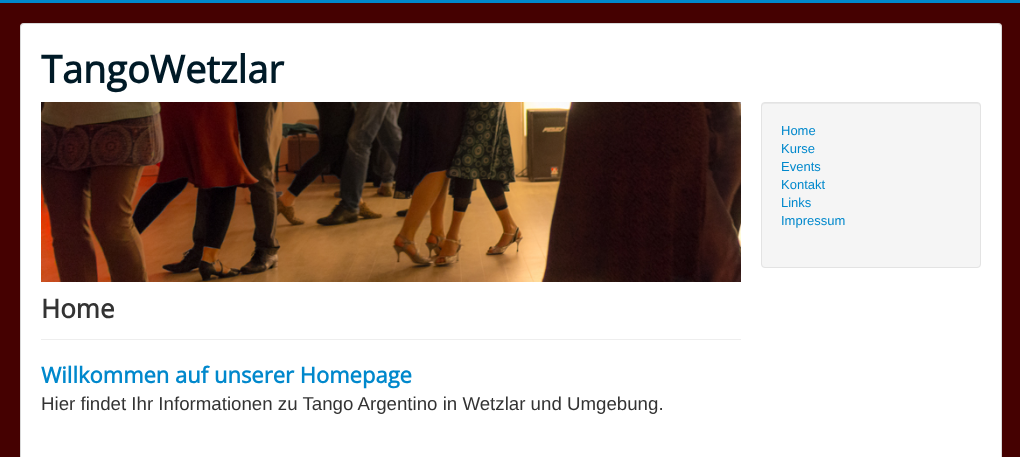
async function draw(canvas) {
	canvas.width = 1020;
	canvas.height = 457;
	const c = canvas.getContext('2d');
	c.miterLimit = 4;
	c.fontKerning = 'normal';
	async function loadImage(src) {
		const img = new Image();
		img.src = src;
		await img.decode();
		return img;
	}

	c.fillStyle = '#450101';
	c.fillRect(0, 0, 1020, 457);
	c.fillStyle = '#08c';
	c.fillRect(0, 0, 1020, 3);
	c.fillStyle = '#fff';
	c.beginPath();
	c.roundRect(20, 23, 982, 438, 4);
	c.fill();
	c.beginPath();
	c.roundRect(20.5, 23.5, 981, 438, 3.5);
	c.strokeStyle = '#00000026';
	c.stroke();
	c.font = 'bold 38px Open Sans';
	c.fillStyle = '#001a27';
	c.fillText('TangoWetzlar', 41, 83);
	c.fillStyle = '#f5f5f5';
	c.beginPath();
	c.roundRect(761, 102, 220, 166, 4);
	c.fill();
	c.fillStyle = '#e9e9e9';
	c.beginPath();
	c.moveTo(765, 104);
	c.lineTo(977, 104);
	c.bezierCurveTo(979, 104, 980, 105, 980, 107);
	c.lineTo(980, 106);
	c.bezierCurveTo(980, 104, 979, 103, 977, 103);
	c.lineTo(765, 103);
	c.bezierCurveTo(763, 103, 762, 104, 762, 106);
	c.lineTo(762, 107);
	c.bezierCurveTo(762, 105, 763, 104, 765, 104);
	c.closePath();
	c.fill();
	c.beginPath();
	c.roundRect(761.5, 102.5, 219, 165, 3.5);
	c.strokeStyle = '#e3e3e3';
	c.stroke();
	c.font = '13px Liberation Sans';
	c.fillStyle = '#08c';
	for (const [text, x, y] of [
		['Home', 781, 135],
		['Kurse', 781, 153],
		['Events', 781, 171],
		['Kontakt', 781, 189],
		['Links', 781, 207],
		['Impressum', 781, 225],
	]) {
		c.fillText(text, x, y);
	}
	c.drawImage(await loadImage('img1.png'), 41, 102, 700, 180);
	c.fillStyle = '#eee';
	c.fillRect(41, 339, 700, 1);
	c.font = 'bold 26px Open Sans';
	c.fillStyle = '#333';
	c.fillText('Home', 41, 318);
	c.font = 'bold 22px Open Sans';
	c.fillStyle = '#08c';
	c.fillText('Willkommen auf unserer Homepage', 41, 383);
	c.font = '18.7px Liberation Sans';
	c.fillStyle = '#333';
	c.fillText('Hier findet Ihr Informationen zu Tango Argentino in Wetzlar und Umgebung.', 41, 410);
}

draw(document.querySelector('canvas'));
